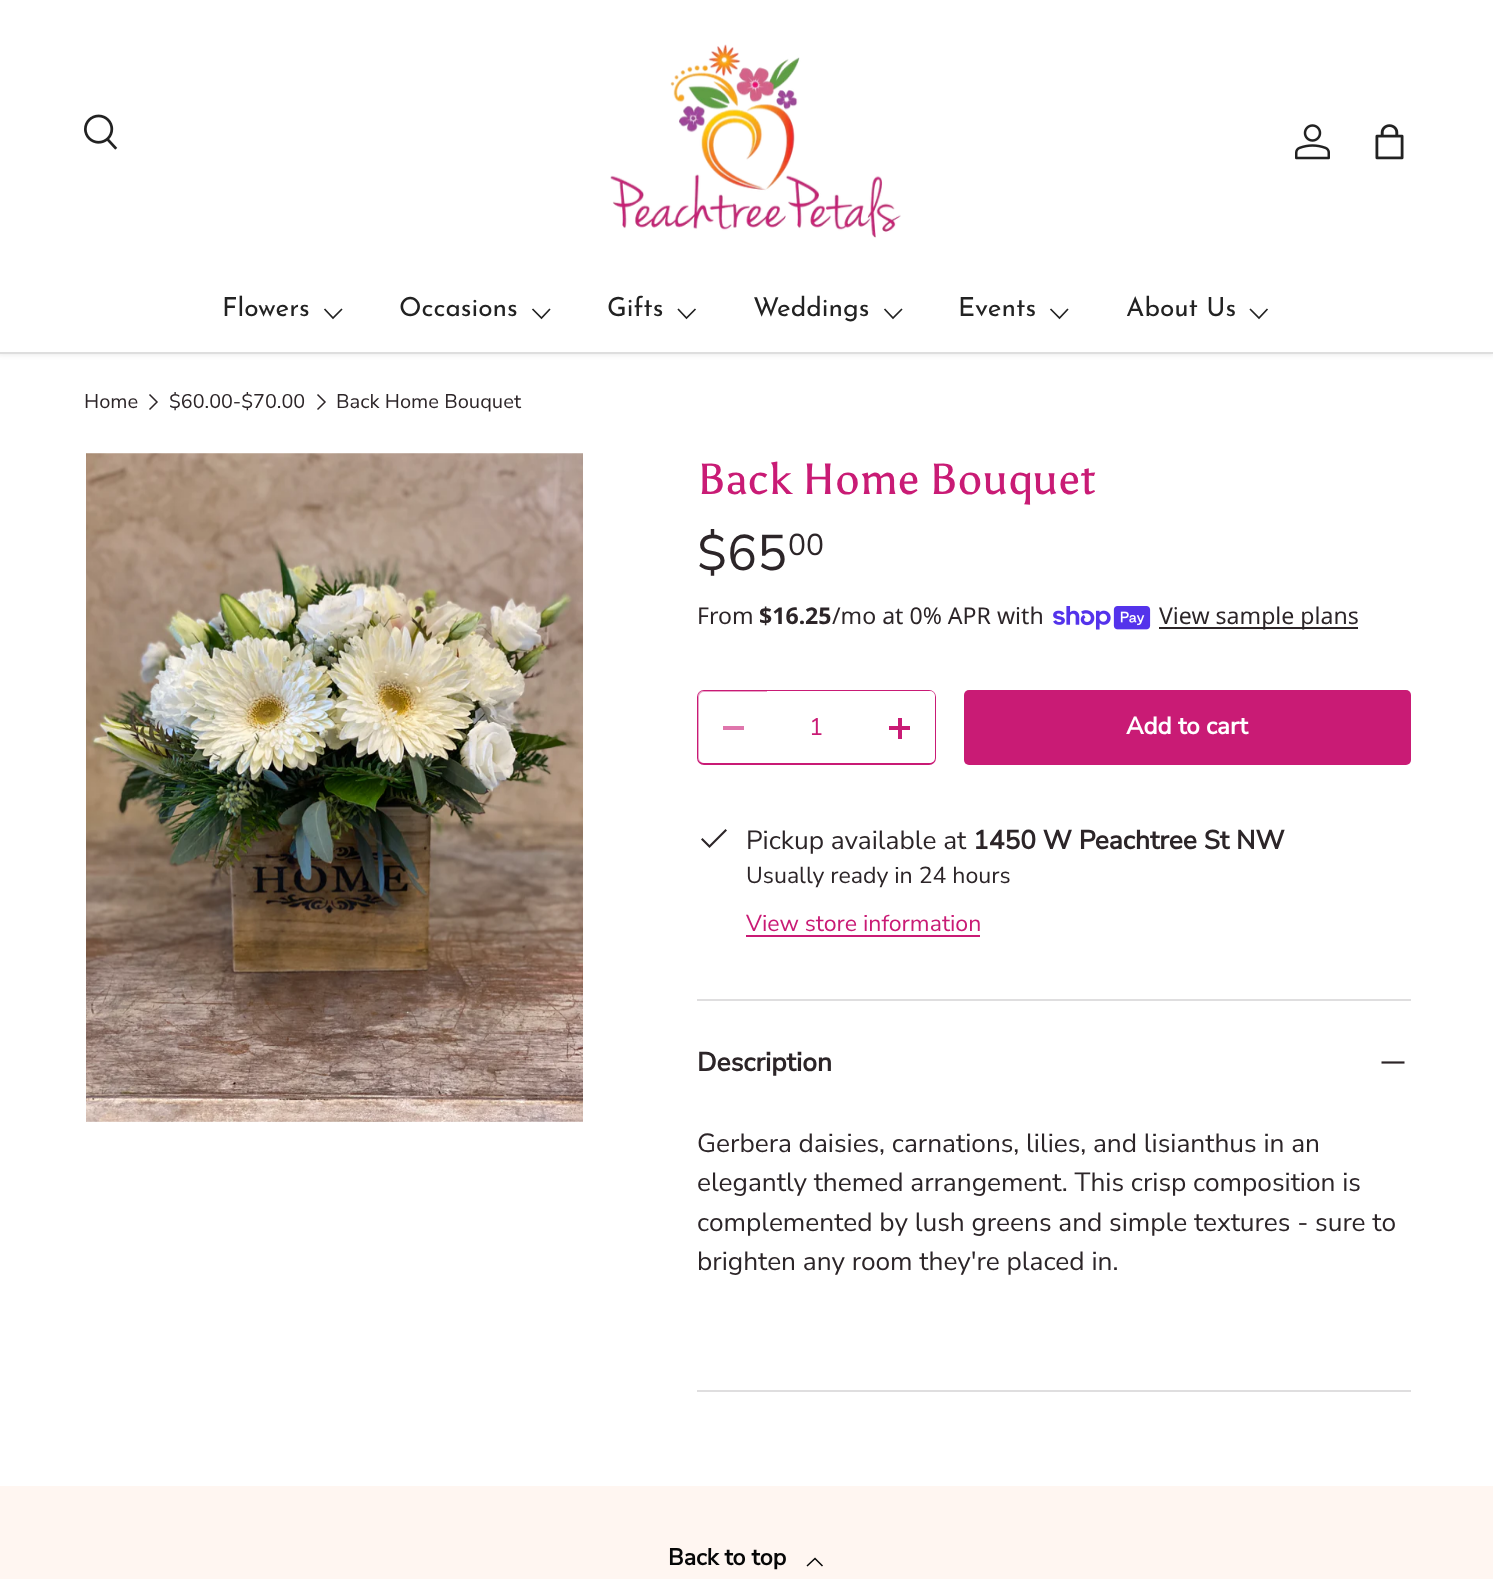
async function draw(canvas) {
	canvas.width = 1493;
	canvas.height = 1579;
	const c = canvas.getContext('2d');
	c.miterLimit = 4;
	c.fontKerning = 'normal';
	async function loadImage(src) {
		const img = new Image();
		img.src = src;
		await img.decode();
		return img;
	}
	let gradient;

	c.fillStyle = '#fff';
	c.fillRect(0, 0, 1493, 1579);
	c.fillStyle = '#00000014';
	c.filter = 'blur(2.5px)';
	c.beginPath();
	c.rect(-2, -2, 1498, 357);
	c.fill();
	c.filter = 'none';
	c.fillStyle = '#fff';
	c.fillRect(0, 0, 1493, 352);
	c.drawImage(await loadImage('img1.png'), 84, 114, 34, 36);
	c.drawImage(await loadImage('img2.png'), 610, 44, 291, 194);
	c.drawImage(await loadImage('img3.png'), 1295, 124, 35, 36);
	c.drawImage(await loadImage('img4.png'), 1375, 124, 29, 36);
	c.font = '26.25px Josefin Sans';
	c.fillStyle = '#222';
	c.fillText('Flowers', 222, 316);
	c.beginPath();
	c.moveTo(342, 309);
	c.lineTo(333, 318);
	c.lineTo(324.5, 309);
	c.strokeStyle = '#222';
	c.lineWidth = 1.7;
	c.stroke();
	c.fillText('Occasions', 399, 316);
	c.beginPath();
	c.moveTo(550, 309);
	c.lineTo(541.5, 318);
	c.lineTo(532.5, 309);
	c.stroke();
	c.fillText('Gifts', 607, 316);
	c.beginPath();
	c.moveTo(695.5, 309);
	c.lineTo(686.5, 318);
	c.lineTo(678, 309);
	c.stroke();
	c.fillText('Weddings', 753, 316);
	c.beginPath();
	c.moveTo(902, 309);
	c.lineTo(893, 318);
	c.lineTo(884.5, 309);
	c.stroke();
	c.fillText('Events', 958, 316);
	c.beginPath();
	c.moveTo(1068, 309);
	c.lineTo(1059.5, 318);
	c.lineTo(1050.5, 309);
	c.stroke();
	c.fillText('About Us', 1126, 316);
	c.beginPath();
	c.moveTo(1267.5, 309);
	c.lineTo(1259, 318);
	c.lineTo(1250, 309);
	c.stroke();
	c.fillStyle = '#dedede';
	c.fillRect(0, 352, 1493, 2);
	c.font = '19.75px Nunito Sans';
	c.fillStyle = '#2c2528';
	c.fillText('Home', 84, 408);
	c.beginPath();
	c.moveTo(149.5, 394.5);
	c.lineTo(157, 402);
	c.lineTo(149.5, 409.5);
	c.strokeStyle = '#2c2528';
	c.lineWidth = 1.5;
	c.stroke();
	c.save();
	c.beginPath();
	c.rect(170, 392, 135, 21);
	c.clip();
	c.fillText('$60.00-$70.00', 169, 408);
	c.restore();
	c.beginPath();
	c.moveTo(317.5, 394.5);
	c.lineTo(325, 402);
	c.lineTo(317.5, 409.5);
	c.stroke();
	c.fillText('Back Home Bouquet', 336, 408);
	c.drawImage(await loadImage('img5.png'), 86, 453, 497, 669);
	c.font = '43.5px Asul';
	c.fillStyle = '#c91b75';
	c.fillText('Back Home Bouquet', 697, 494);
	c.font = '50px "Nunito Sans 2"';
	c.fillStyle = '#2c2528';
	c.fillText('$65', 697, 570);
	c.font = '30px "Nunito Sans 2"';
	c.fillText('00', 788, 555);
	c.font = '23.1px Noto Sans';
	c.fillText('From', 697, 624);
	c.font = 'bold 23.1px Noto Sans';
	c.fillText('$16.25', 759, 624);
	c.font = '23.1px Noto Sans';
	c.fillText('/mo at 0% APR with', 832, 624);
	c.drawImage(await loadImage('img6.png'), 1053, 606, 98, 24);
	c.fillRect(1159, 627, 199, 2);
	c.fillText('View sample plans', 1159, 624);
	c.beginPath();
	c.roundRect(698, 691, 237, 73, 6);
	c.strokeStyle = '#c91a75';
	c.lineWidth = 2;
	c.stroke();
	c.fillStyle = '#ffffff99';
	c.beginPath();
	c.roundRect(698, 691, 69, 72, [5, 0, 0, 5]);
	c.fill();
	c.fillStyle = '#df76ac';
	c.fillRect(723, 726, 21, 4);
	c.fillStyle = '#fff';
	c.fillRect(767, 691, 99, 1);
	c.font = '24px "Nunito Sans 2"';
	c.fillStyle = '#c91b75';
	c.fillText('1', 809, 735);
	c.fillStyle = '#fff';
	c.beginPath();
	c.roundRect(866, 691, 69, 72, [0, 5, 5, 0]);
	c.fill();
	c.fillStyle = '#c91b75';
	c.fillRect(889, 726, 21, 4);
	c.fillRect(898, 718, 4, 21);
	gradient = c.createLinearGradient(102, 568, 1380, 886);
	gradient.addColorStop(0.6, '#d44991');
	gradient.addColorStop(0.6, '#c91b75');
	gradient.addColorStop(1, '#c91b75');
	c.fillStyle = gradient;
	c.beginPath();
	c.roundRect(964, 690, 447, 75, 5);
	c.fill();
	c.font = 'bold 24px Nunito Sans';
	c.fillStyle = '#fff';
	c.fillText('Add to cart', 1126, 734);
	c.fillStyle = '#2c2528';
	c.beginPath();
	c.moveTo(725.5, 829);
	c.lineTo(727, 830.5);
	c.lineTo(709.5, 848);
	c.lineTo(701, 839.5);
	c.lineTo(702.5, 838);
	c.lineTo(709.5, 845);
	c.closePath();
	c.fill();
	c.font = '26.25px "Nunito Sans 2"';
	c.fillText('Pickup available at', 746, 849);
	c.font = 'bold 26.25px Nunito Sans';
	c.fillText('1450 W Peachtree St NW', 973, 849);
	c.font = '23.1px "Nunito Sans 2"';
	c.fillText('Usually ready in 24 hours', 746, 883);
	c.fillStyle = '#c91b75';
	c.fillText('View store information', 746, 931);
	for (const [x, y, w, h, color] of [
		[746, 935, 234, 2, '#c91b75'],
		[697, 999, 714, 2, '#dfdedf'],
		[697, 1390, 714, 2, '#dfdedf'],
	]) {
		c.fillStyle = color;
		c.fillRect(x, y, w, h);
	}
	c.font = 'bold 26.25px Nunito Sans';
	c.fillStyle = '#2c2528';
	c.fillText('Description', 697, 1071);
	c.beginPath();
	c.moveTo(1381.5, 1062.5);
	c.lineTo(1404.5, 1062.5);
	c.strokeStyle = '#2c2528';
	c.lineWidth = 2.2;
	c.stroke();
	c.font = '26.25px "Nunito Sans 2"';
	for (const [text, x, y] of [
		['Gerbera daisies, carnations, lilies, and lisianthus in an', 697, 1152],
		['elegantly themed arrangement. This crisp composition is', 697, 1191],
		['complemented by lush greens and simple textures - sure to', 697, 1231],
		['brighten any room they\'re placed in.', 697, 1270],
	]) {
		c.fillText(text, x, y);
	}
	c.fillStyle = '#fff6f1';
	c.fillRect(0, 1486, 1493, 93);
	c.font = 'bold 23.1px Nunito Sans';
	c.fillStyle = '#070707';
	c.fillText('Back to top', 668, 1565);
	c.beginPath();
	c.moveTo(807, 1566);
	c.lineTo(815, 1558.5);
	c.lineTo(822.5, 1566);
	c.strokeStyle = '#070707';
	c.lineWidth = 1.5;
	c.stroke();
}

draw(document.querySelector('canvas'));
